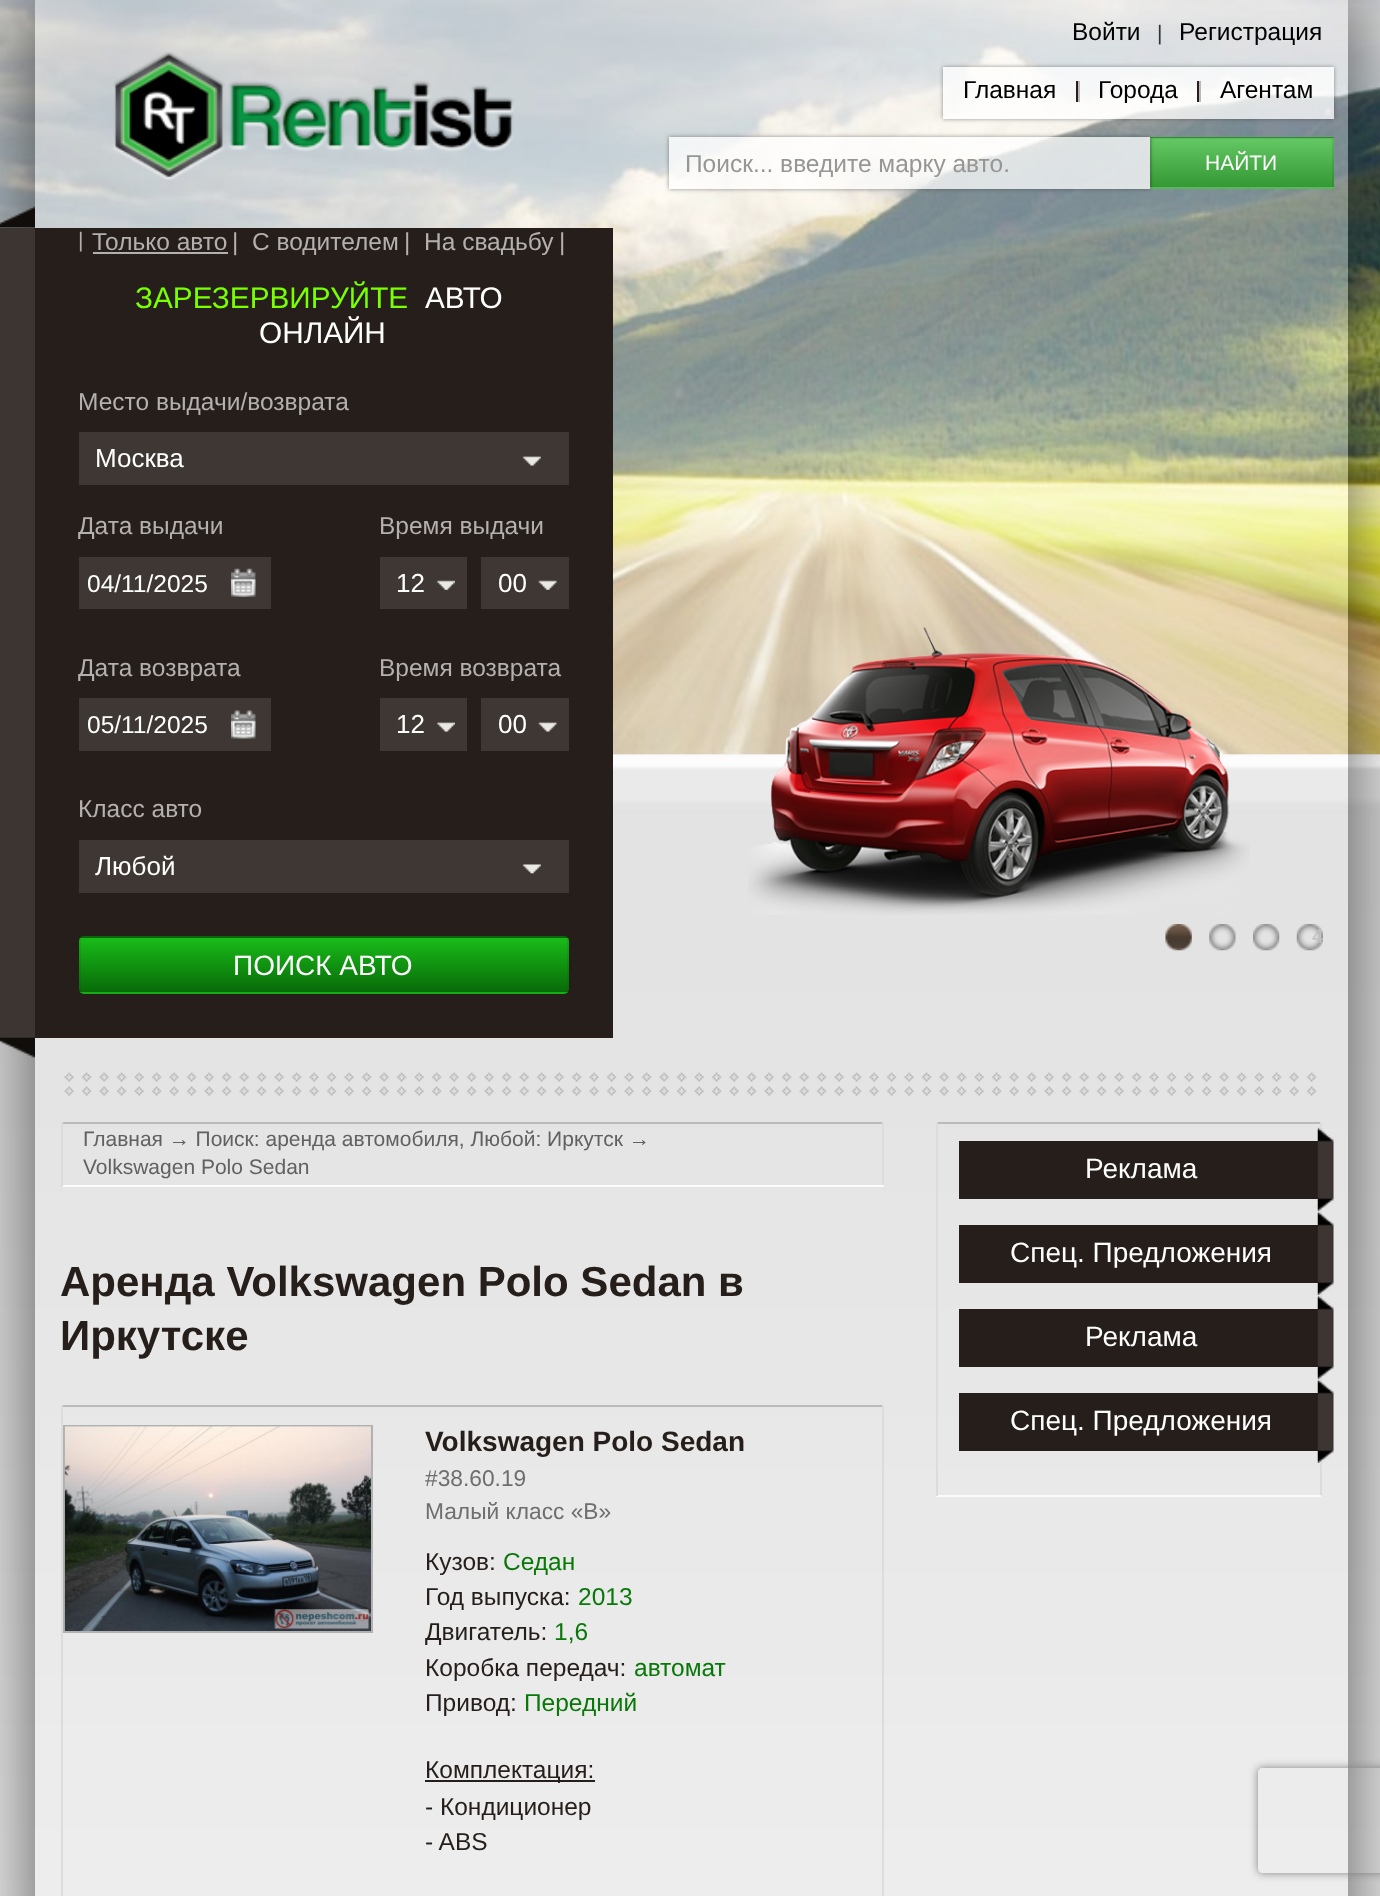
async function draw(canvas) {
	canvas.width = 1380;
	canvas.height = 1896;
	const c = canvas.getContext('2d');
	c.miterLimit = 4;
	c.fontKerning = 'normal';
	async function loadImage(src) {
		const img = new Image();
		img.src = src;
		await img.decode();
		return img;
	}
	let gradient;

	c.fillStyle = '#e8e8e8';
	c.fillRect(0, 0, 1380, 1896);
	c.drawImage(await loadImage('img1.png'), 0, 754, 1380, 1142);
	c.drawImage(await loadImage('img2.png'), 0, 0, 1380, 755);
	c.save();
	c.beginPath();
	c.moveTo(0, 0);
	c.lineTo(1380, 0);
	c.lineTo(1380, 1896);
	c.lineTo(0, 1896);
	c.closePath();
	c.moveTo(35, 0);
	c.lineTo(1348, 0);
	c.lineTo(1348, 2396);
	c.lineTo(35, 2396);
	c.closePath();
	c.clip('evenodd');
	c.fillStyle = '#323232bf';
	c.filter = 'blur(35px)';
	c.beginPath();
	c.rect(35, 0, 1313, 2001);
	c.fill();
	c.filter = 'none';
	c.restore();
	c.fillStyle = '#ffffff66';
	c.fillRect(35, 0, 1313, 1896);
	c.drawImage(await loadImage('img3.png'), 113, 52, 401, 128);
	c.font = '24.5px Liberation Sans';
	c.fillStyle = '#000';
	c.fillText('Войти', 1072, 40);
	c.font = '21px Liberation Sans';
	c.fillStyle = '#333';
	c.fillText('|', 1157, 40);
	c.font = '24.5px Liberation Sans';
	c.fillStyle = '#000';
	c.fillText('Регистрация', 1179, 40);
	c.save();
	c.beginPath();
	c.moveTo(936, 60);
	c.lineTo(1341, 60);
	c.lineTo(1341, 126);
	c.lineTo(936, 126);
	c.closePath();
	c.moveTo(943, 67);
	c.lineTo(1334, 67);
	c.lineTo(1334, 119);
	c.lineTo(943, 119);
	c.closePath();
	c.clip('evenodd');
	c.fillStyle = '#32323280';
	c.filter = 'blur(2px)';
	c.beginPath();
	c.rect(943, 67, 391, 52);
	c.fill();
	c.filter = 'none';
	c.restore();
	c.fillStyle = '#ffffffbf';
	c.fillRect(943, 67, 391, 52);
	c.fillStyle = '#261e1a';
	c.fillRect(1076, 81, 2, 21);
	c.fillStyle = '#000';
	c.fillText('Главная', 963, 98);
	c.fillStyle = '#261e1a';
	c.fillRect(1197, 81, 2, 21);
	c.fillStyle = '#bcb9b8';
	c.fillRect(1078, 81, 2, 21);
	c.fillStyle = '#000';
	c.fillText('Города', 1098, 98);
	c.fillStyle = '#bcb9b8';
	c.fillRect(1199, 81, 2, 21);
	c.fillStyle = '#000';
	c.fillText('Агентам', 1220, 98);
	gradient = c.createLinearGradient(1152, 138, 1152, 89);
	gradient.addColorStop(0, '#349934');
	gradient.addColorStop(1, '#64c864');
	c.fillStyle = gradient;
	c.fillRect(1150, 137, 184, 1);
	gradient = c.createLinearGradient(1152, 187, 1152, 138);
	gradient.addColorStop(0, '#349934');
	gradient.addColorStop(1, '#64c864');
	c.fillStyle = gradient;
	c.fillRect(1150, 138, 184, 49);
	gradient = c.createLinearGradient(1152, 236, 1152, 187);
	gradient.addColorStop(0, '#349934');
	gradient.addColorStop(1, '#64c864');
	c.fillStyle = gradient;
	c.fillRect(1150, 187, 184, 2);
	c.strokeStyle = '#0b3c0b1a';
	c.lineWidth = 2;
	c.strokeRect(1151, 138, 182, 50);
	c.save();
	c.beginPath();
	c.moveTo(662, 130);
	c.lineTo(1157, 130);
	c.lineTo(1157, 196);
	c.lineTo(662, 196);
	c.closePath();
	c.moveTo(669, 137);
	c.lineTo(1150, 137);
	c.lineTo(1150, 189);
	c.lineTo(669, 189);
	c.closePath();
	c.clip('evenodd');
	c.fillStyle = '#32323285';
	c.filter = 'blur(2px)';
	c.beginPath();
	c.rect(669, 137, 481, 52);
	c.fill();
	c.filter = 'none';
	c.restore();
	c.fillStyle = '#ffffffbf';
	c.fillRect(669, 137, 481, 52);
	c.fillStyle = '#969695';
	c.fillText('Поиск... введите марку авто.', 685, 172);
	c.font = '21px Liberation Sans';
	c.fillStyle = '#fff';
	c.fillText('НАЙТИ', 1205, 170);
	c.fillStyle = '#3c3531';
	c.fillRect(0, 228, 35, 810);
	c.drawImage(await loadImage('img4.png'), 0, 206, 35, 22);
	c.fillStyle = '#261e1a';
	c.fillRect(35, 228, 578, 810);
	c.fillStyle = '#b3b0af';
	c.fillText('|', 78, 247);
	c.font = '24.5px Liberation Sans';
	c.fillText('Только авто', 92, 250);
	c.fillRect(93, 252, 135, 2);
	for (const [text, x, y] of [
		['|', 232, 250],
		['С водителем', 252, 250],
		['|', 404, 250],
		['На свадьбу', 424, 250],
		['|', 559, 250],
	]) {
		c.fillText(text, x, y);
	}
	c.font = '29.75px Liberation Sans';
	c.fillStyle = '#78ff00';
	c.fillText('ЗАРЕЗЕРВИРУЙТЕ', 135, 308);
	c.fillStyle = '#fff';
	c.fillText('АВТО', 425, 308);
	c.fillText('ОНЛАЙН', 259, 343);
	c.font = '24.5px Liberation Sans';
	c.fillStyle = '#b3b0af';
	c.fillText('Место выдачи/возврата', 78, 410);
	c.fillStyle = '#3e3733';
	c.fillRect(79, 432, 490, 53);
	c.drawImage(await loadImage('img5.png'), 522, 456, 19, 10);
	c.font = '26px Liberation Sans';
	c.fillStyle = '#fff';
	c.fillText('Москва', 95, 467);
	c.font = '24.5px Liberation Sans';
	c.fillStyle = '#b3b0af';
	c.fillText('Дата выдачи', 78, 534);
	c.fillStyle = '#3e3733';
	c.fillRect(79, 557, 192, 52);
	c.drawImage(await loadImage('img6.png'), 231, 568, 25, 29);
	c.save();
	c.beginPath();
	c.rect(88, 569, 131, 28);
	c.clip();
	c.fillStyle = '#fff';
	c.fillText('04/11/2025', 87, 592);
	c.restore();
	c.fillStyle = '#b3b0af';
	c.fillText('Дата возврата', 78, 676);
	c.fillStyle = '#3e3733';
	c.fillRect(79, 698, 192, 53);
	c.drawImage(await loadImage('img7.png'), 231, 710, 25, 29);
	c.save();
	c.beginPath();
	c.rect(88, 711, 131, 28);
	c.clip();
	c.fillStyle = '#fff';
	c.fillText('05/11/2025', 87, 733);
	c.restore();
	c.fillStyle = '#b3b0af';
	c.fillText('Время выдачи', 379, 534);
	c.fillStyle = '#3e3733';
	c.fillRect(380, 557, 87, 52);
	c.drawImage(await loadImage('img8.png'), 437, 580, 18, 10);
	c.font = '26px Liberation Sans';
	c.fillStyle = '#fff';
	c.fillText('12', 396, 592);
	c.fillStyle = '#3e3733';
	c.fillRect(481, 557, 88, 52);
	c.drawImage(await loadImage('img9.png'), 538, 580, 19, 10);
	c.fillStyle = '#fff';
	c.fillText('00', 498, 592);
	c.font = '24.5px Liberation Sans';
	c.fillStyle = '#b3b0af';
	c.fillText('Время возврата', 379, 676);
	c.fillStyle = '#3e3733';
	c.fillRect(380, 698, 87, 53);
	c.drawImage(await loadImage('img10.png'), 437, 722, 18, 10);
	c.font = '26px Liberation Sans';
	c.fillStyle = '#fff';
	c.fillText('12', 396, 733);
	c.fillStyle = '#3e3733';
	c.fillRect(481, 698, 88, 53);
	c.drawImage(await loadImage('img11.png'), 538, 722, 19, 10);
	c.fillStyle = '#fff';
	c.fillText('00', 498, 733);
	c.font = '24.5px Liberation Sans';
	c.fillStyle = '#b3b0af';
	c.fillText('Класс авто', 78, 817);
	c.fillStyle = '#3e3733';
	c.fillRect(79, 840, 490, 53);
	c.drawImage(await loadImage('img12.png'), 522, 864, 19, 10);
	c.font = '26px Liberation Sans';
	c.fillStyle = '#fff';
	c.fillText('Любой', 95, 875);
	c.save();
	c.beginPath();
	c.roundRect(79, 936, 490, 58, 5);
	c.clip();
	gradient = c.createLinearGradient(81, 938, 81, 884);
	gradient.addColorStop(0, '#086a08');
	gradient.addColorStop(1, '#19bb19');
	c.fillStyle = gradient;
	c.fillRect(79, 936, 490, 2);
	gradient = c.createLinearGradient(81, 992, 81, 938);
	gradient.addColorStop(0, '#086a08');
	gradient.addColorStop(1, '#19bb19');
	c.fillStyle = gradient;
	c.fillRect(79, 938, 490, 54);
	gradient = c.createLinearGradient(81, 1047, 81, 992);
	gradient.addColorStop(0, '#086a08');
	gradient.addColorStop(1, '#19bb19');
	c.fillStyle = gradient;
	c.fillRect(79, 992, 490, 2);
	c.restore();
	c.beginPath();
	c.roundRect(80, 937, 488, 56, 4);
	c.stroke();
	c.font = '28px Liberation Sans';
	c.fillText('ПОИСК АВТО', 233, 975);
	c.drawImage(await loadImage('img13.png'), 0, 1037, 35, 21);
	c.drawImage(await loadImage('img14.png'), 748, 627, 502, 288);
	c.drawImage(await loadImage('img15.png'), 1165, 924, 27, 27);
	c.drawImage(await loadImage('img16.png'), 1209, 924, 27, 27);
	c.drawImage(await loadImage('img17.png'), 1253, 924, 27, 27);
	c.drawImage(await loadImage('img18.png'), 1296, 924, 27, 27);
	c.font = '21px Liberation Sans';
	c.fillStyle = '#c1c1c1';
	c.fillText('4', 1312, 943);
	c.drawImage(await loadImage('img19.png'), 64, 1072, 1253, 24);
	for (const [x, y, w, h, color] of [
		[61, 1122, 823, 2, '#bababa'],
		[882, 1122, 2, 65, '#dcdcdc'],
		[61, 1185, 823, 2, '#fcfcfc'],
		[61, 1122, 2, 65, '#dcdcdc'],
	]) {
		c.fillStyle = color;
		c.fillRect(x, y, w, h);
	}
	c.fillStyle = '#616161';
	c.fillText('Главная → Поиск: аренда автомобиля, Любой: Иркутск →', 83, 1146);
	c.fillText('Volkswagen Polo Sedan', 83, 1174);
	c.font = 'bold 42px Liberation Sans';
	c.fillStyle = '#261e1a';
	c.fillText('Аренда Volkswagen Polo Sedan в', 60, 1296);
	c.fillText('Иркутске', 60, 1350);
	for (const [x, y, w, h, color] of [
		[61, 1405, 823, 2, '#bababa'],
		[882, 1405, 2, 491, '#dcdcdc'],
		[61, 1405, 2, 491, '#dcdcdc'],
	]) {
		c.fillStyle = color;
		c.fillRect(x, y, w, h);
	}
	c.strokeStyle = '#b1b1b1';
	c.strokeRect(64, 1426, 308, 206);
	c.drawImage(await loadImage('img20.png'), 64, 1426, 307, 205);
	c.font = 'bold 28px Liberation Sans';
	c.fillStyle = '#261e1a';
	c.fillText('Volkswagen Polo Sedan', 425, 1451);
	c.font = '22.75px Liberation Sans';
	c.fillStyle = '#6e6e6e';
	c.fillText('#38.60.19', 425, 1486);
	c.fillText('Малый класс «B»', 425, 1519);
	c.font = '24.5px Liberation Sans';
	c.fillStyle = '#261e1a';
	c.fillText('Кузов:', 425, 1570);
	c.fillStyle = '#097809';
	c.fillText('Седан', 503, 1570);
	c.fillStyle = '#261e1a';
	c.fillText('Год выпуска:', 425, 1605);
	c.fillStyle = '#097809';
	c.fillText('2013', 578, 1605);
	c.fillStyle = '#261e1a';
	c.fillText('Двигатель:', 425, 1640);
	c.fillStyle = '#097809';
	c.fillText('1,6', 554, 1640);
	c.fillStyle = '#261e1a';
	c.fillText('Коробка передач:', 425, 1676);
	c.fillStyle = '#097809';
	c.fillText('автомат', 634, 1676);
	c.fillStyle = '#261e1a';
	c.fillText('Привод:', 425, 1711);
	c.fillStyle = '#097809';
	c.fillText('Передний', 524, 1711);
	c.fillStyle = '#261e1a';
	c.fillRect(425, 1780, 170, 2);
	for (const [text, x, y] of [
		['Комплектация:', 425, 1778],
		['- Кондиционер', 425, 1815],
		['- ABS', 425, 1850],
	]) {
		c.fillText(text, x, y);
	}
	for (const [x, y, w, h, color] of [
		[936, 1122, 385, 2, '#bababa'],
		[1320, 1122, 2, 374, '#dcdcdc'],
		[936, 1495, 385, 2, '#fcfcfc'],
		[936, 1122, 2, 374, '#dcdcdc'],
		[959, 1141, 359, 58, '#261e1a'],
	]) {
		c.fillStyle = color;
		c.fillRect(x, y, w, h);
	}
	c.font = '28px Liberation Sans';
	c.fillStyle = '#fff';
	c.fillText('Реклама', 1085, 1178);
	c.drawImage(await loadImage('img21.png'), 1317, 1127, 17, 84);
	c.fillStyle = '#261e1a';
	c.fillRect(959, 1225, 359, 58);
	c.fillStyle = '#fff';
	c.fillText('Спец. Предложения', 1010, 1262);
	c.drawImage(await loadImage('img22.png'), 1317, 1211, 17, 84);
	c.fillStyle = '#261e1a';
	c.fillRect(959, 1309, 359, 58);
	c.fillStyle = '#fff';
	c.fillText('Реклама', 1085, 1346);
	c.drawImage(await loadImage('img23.png'), 1317, 1295, 17, 84);
	c.fillStyle = '#261e1a';
	c.fillRect(959, 1393, 359, 58);
	c.fillStyle = '#fff';
	c.fillText('Спец. Предложения', 1010, 1430);
	c.drawImage(await loadImage('img24.png'), 1317, 1379, 17, 84);
	c.save();
	c.beginPath();
	c.moveTo(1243, 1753);
	c.lineTo(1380, 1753);
	c.lineTo(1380, 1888);
	c.lineTo(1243, 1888);
	c.closePath();
	c.moveTo(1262, 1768);
	c.lineTo(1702, 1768);
	c.bezierCurveTo(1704, 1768, 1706, 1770, 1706, 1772);
	c.lineTo(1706, 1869);
	c.bezierCurveTo(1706, 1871, 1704, 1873, 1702, 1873);
	c.lineTo(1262, 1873);
	c.bezierCurveTo(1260, 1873, 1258, 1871, 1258, 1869);
	c.lineTo(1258, 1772);
	c.bezierCurveTo(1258, 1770, 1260, 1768, 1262, 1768);
	c.closePath();
	c.clip('evenodd');
	c.fillStyle = '#808080';
	c.filter = 'blur(4.5px)';
	c.beginPath();
	c.roundRect(1258, 1768, 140, 105, 4);
	c.fill();
	c.filter = 'none';
	c.restore();
}

draw(document.querySelector('canvas'));
